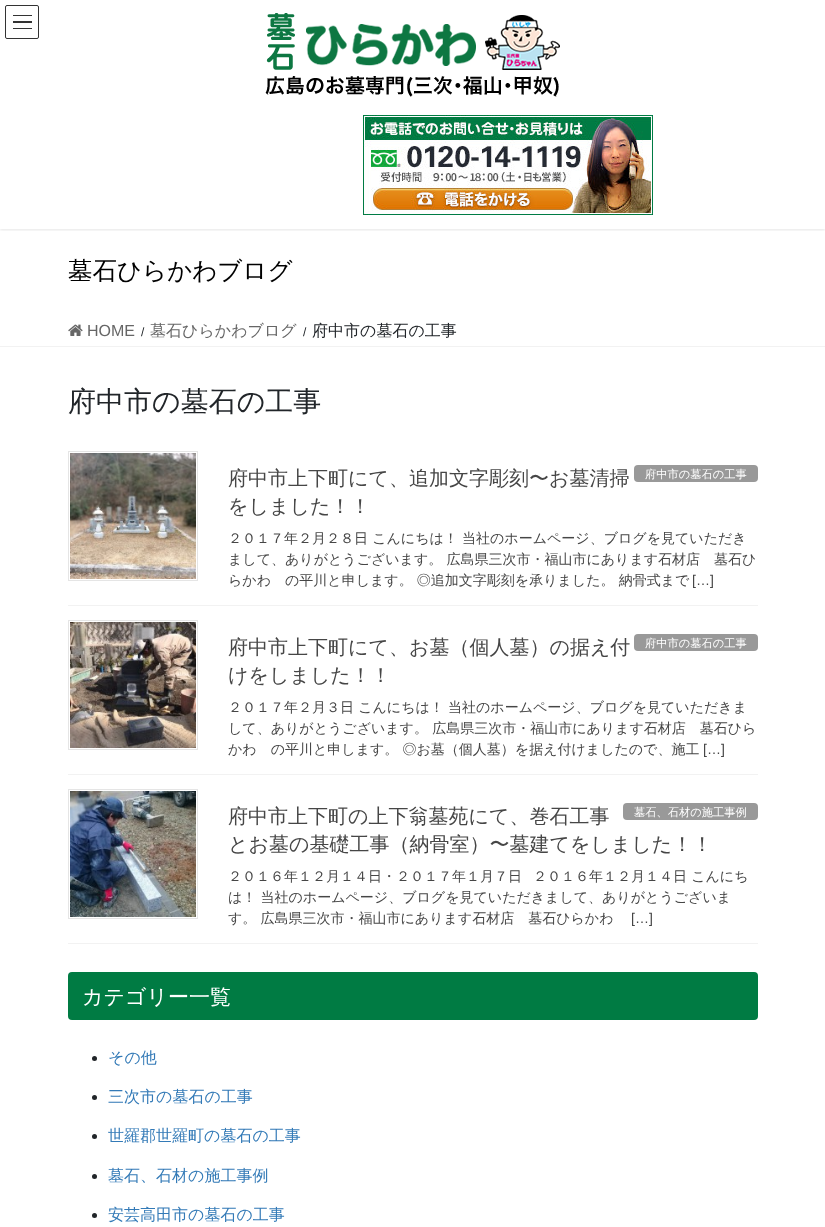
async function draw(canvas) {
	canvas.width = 825;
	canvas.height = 1227;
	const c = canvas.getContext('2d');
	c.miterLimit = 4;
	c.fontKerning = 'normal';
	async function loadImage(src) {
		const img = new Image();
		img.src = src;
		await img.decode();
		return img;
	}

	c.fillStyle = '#fff';
	c.fillRect(0, 0, 825, 1227);
	c.save();
	c.beginPath();
	c.rect(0, 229, 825, 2);
	c.clip();
	c.fillStyle = '#0000001a';
	c.filter = 'blur(1.5px)';
	c.beginPath();
	c.rect(0, 1, 825, 229);
	c.fill();
	c.filter = 'none';
	c.restore();
	c.drawImage(await loadImage('img1.png'), 265, 13, 295, 84);
	c.drawImage(await loadImage('img2.png'), 363, 115, 290, 100);
	for (const [x, y, w, h, color] of [
		[13, 15, 19, 1, '#333'],
		[13, 21, 19, 2, '#333'],
		[13, 28, 19, 1, '#333'],
	]) {
		c.fillStyle = color;
		c.fillRect(x, y, w, h);
	}
	c.beginPath();
	c.roundRect(5.5, 5.5, 33, 33, 1.5);
	c.strokeStyle = '#333';
	c.stroke();
	c.font = '500 24.5px WenQuanYi Zen Hei';
	c.fillStyle = '#000';
	c.fillText('墓石ひらかわブログ', 68, 279);
	c.fillStyle = '#f2f2f2';
	c.fillRect(0, 346, 825, 1);
	c.drawImage(await loadImage('img3.png'), 68, 324, 15, 12);
	c.font = '16px Liberation Sans';
	c.fillStyle = '#666';
	c.fillText('HOME', 87, 336);
	c.font = '12px Liberation Sans';
	c.fillStyle = '#212529';
	c.fillText('/', 141, 336);
	c.font = '500 16px WenQuanYi Zen Hei';
	c.fillStyle = '#666';
	c.fillText('墓石ひらかわブログ', 150, 336);
	c.font = '12px Liberation Sans';
	c.fillStyle = '#212529';
	c.fillText('/', 303, 336);
	c.font = '500 16px WenQuanYi Zen Hei';
	c.fillText('府中市の墓石の工事', 312, 336);
	c.font = '500 28px WenQuanYi Zen Hei';
	c.fillText('府中市の墓石の工事', 68, 411);
	c.fillStyle = '#f2f2f2';
	c.fillRect(68, 605, 690, 1);
	c.strokeStyle = '#e5e5e5';
	c.strokeRect(68.5, 451.5, 129, 129);
	c.drawImage(await loadImage('img4.png'), 70, 453, 126, 126);
	c.font = '500 20px WenQuanYi Zen Hei';
	c.fillStyle = '#464646';
	c.fillText('府中市上下町にて、追加文字彫刻〜お墓清掃', 228, 485);
	c.fillText('をしました！！', 228, 513);
	c.fillStyle = '#999';
	c.beginPath();
	c.roundRect(634, 465, 124, 17, 4);
	c.fill();
	c.font = '500 11.25px WenQuanYi Zen Hei';
	c.fillStyle = '#fff';
	c.fillText('府中市の墓石の工事', 645, 478);
	c.font = '500 14px WenQuanYi Zen Hei';
	c.fillStyle = '#464646';
	for (const [text, x, y] of [
		['２０１７年２月２８日 こんにちは！ 当社のホームページ、ブログを見ていただき', 228, 543],
		['まして、ありがとうございます。 広島県三次市・福山市にあります石材店　墓石ひ', 228, 564],
		['らかわ　の平川と申します。 ◎追加文字彫刻を承りました。 納骨式まで', 228, 585],
	]) {
		c.fillText(text, x, y);
	}
	c.font = '14px Liberation Sans';
	c.fillText('[…]', 692, 585);
	c.fillStyle = '#f2f2f2';
	c.fillRect(68, 774, 690, 1);
	c.strokeRect(68.5, 620.5, 129, 129);
	c.drawImage(await loadImage('img5.png'), 70, 622, 126, 126);
	c.font = '500 20px WenQuanYi Zen Hei';
	c.fillStyle = '#464646';
	c.fillText('府中市上下町にて、お墓（個人墓）の据え付', 228, 654);
	c.fillText('けをしました！！', 228, 682);
	c.fillStyle = '#999';
	c.beginPath();
	c.roundRect(634, 634, 124, 17, 4);
	c.fill();
	c.font = '500 11.25px WenQuanYi Zen Hei';
	c.fillStyle = '#fff';
	c.fillText('府中市の墓石の工事', 645, 647);
	c.font = '500 14px WenQuanYi Zen Hei';
	c.fillStyle = '#464646';
	for (const [text, x, y] of [
		['２０１７年２月３日 こんにちは！ 当社のホームページ、ブログを見ていただきま', 228, 712],
		['して、ありがとうございます。 広島県三次市・福山市にあります石材店　墓石ひら', 228, 733],
		['かわ　の平川と申します。 ◎お墓（個人墓）を据え付けましたので、施工', 228, 754],
	]) {
		c.fillText(text, x, y);
	}
	c.font = '14px Liberation Sans';
	c.fillText('[…]', 703, 754);
	c.fillStyle = '#f2f2f2';
	c.fillRect(68, 943, 690, 1);
	c.strokeRect(68.5, 789.5, 129, 129);
	c.drawImage(await loadImage('img6.png'), 70, 791, 126, 126);
	c.font = '500 20px WenQuanYi Zen Hei';
	c.fillStyle = '#464646';
	c.fillText('府中市上下町の上下翁墓苑にて、巻石工事', 228, 823);
	c.fillText('とお墓の基礎工事（納骨室）〜墓建てをしました！！', 228, 851);
	c.fillStyle = '#999';
	c.beginPath();
	c.roundRect(623, 803, 135, 17, 4);
	c.fill();
	c.font = '500 11.25px WenQuanYi Zen Hei';
	c.fillStyle = '#fff';
	c.fillText('墓石、石材の施工事例', 634, 816);
	c.font = '500 14px WenQuanYi Zen Hei';
	c.fillStyle = '#464646';
	for (const [text, x, y] of [
		['２０１６年１２月１４日・２０１７年１月７日', 228, 881],
		['２０１６年１２月１４日 こんにち', 533, 881],
		['は！ 当社のホームページ、ブログを見ていただきまして、ありがとうございま', 228, 902],
		['す。 広島県三次市・福山市にあります石材店　墓石ひらかわ', 228, 923],
	]) {
		c.fillText(text, x, y);
	}
	c.font = '14px Liberation Sans';
	c.fillText('[…]', 631, 923);
	c.fillStyle = '#007b43';
	c.beginPath();
	c.roundRect(68, 972, 690, 48, 4);
	c.fill();
	c.font = '500 21px WenQuanYi Zen Hei';
	c.fillStyle = '#fff';
	c.fillText('カテゴリー一覧', 82, 1004);
	c.fillStyle = '#212529';
	c.beginPath();
	c.arc(94.5, 1058.5, 2.5, 0, 2 * Math.PI);
	c.fill();
	c.font = '500 16px WenQuanYi Zen Hei';
	c.fillStyle = '#337ab7';
	c.fillText('その他', 108, 1063);
	c.fillStyle = '#212529';
	c.beginPath();
	c.arc(94.5, 1097.5, 2.5, 0, 2 * Math.PI);
	c.fill();
	c.fillStyle = '#337ab7';
	c.fillText('三次市の墓石の工事', 108, 1102);
	c.fillStyle = '#212529';
	c.beginPath();
	c.arc(94.5, 1136.5, 2.5, 0, 2 * Math.PI);
	c.fill();
	c.fillStyle = '#337ab7';
	c.fillText('世羅郡世羅町の墓石の工事', 108, 1141);
	c.fillStyle = '#212529';
	c.beginPath();
	c.arc(94.5, 1176.5, 2.5, 0, 2 * Math.PI);
	c.fill();
	c.fillStyle = '#337ab7';
	c.fillText('墓石、石材の施工事例', 108, 1181);
	c.fillStyle = '#212529';
	c.beginPath();
	c.arc(94.5, 1215.5, 2.5, 0, 2 * Math.PI);
	c.fill();
	c.fillStyle = '#337ab7';
	c.fillText('安芸高田市の墓石の工事', 108, 1220);
}

draw(document.querySelector('canvas'));
